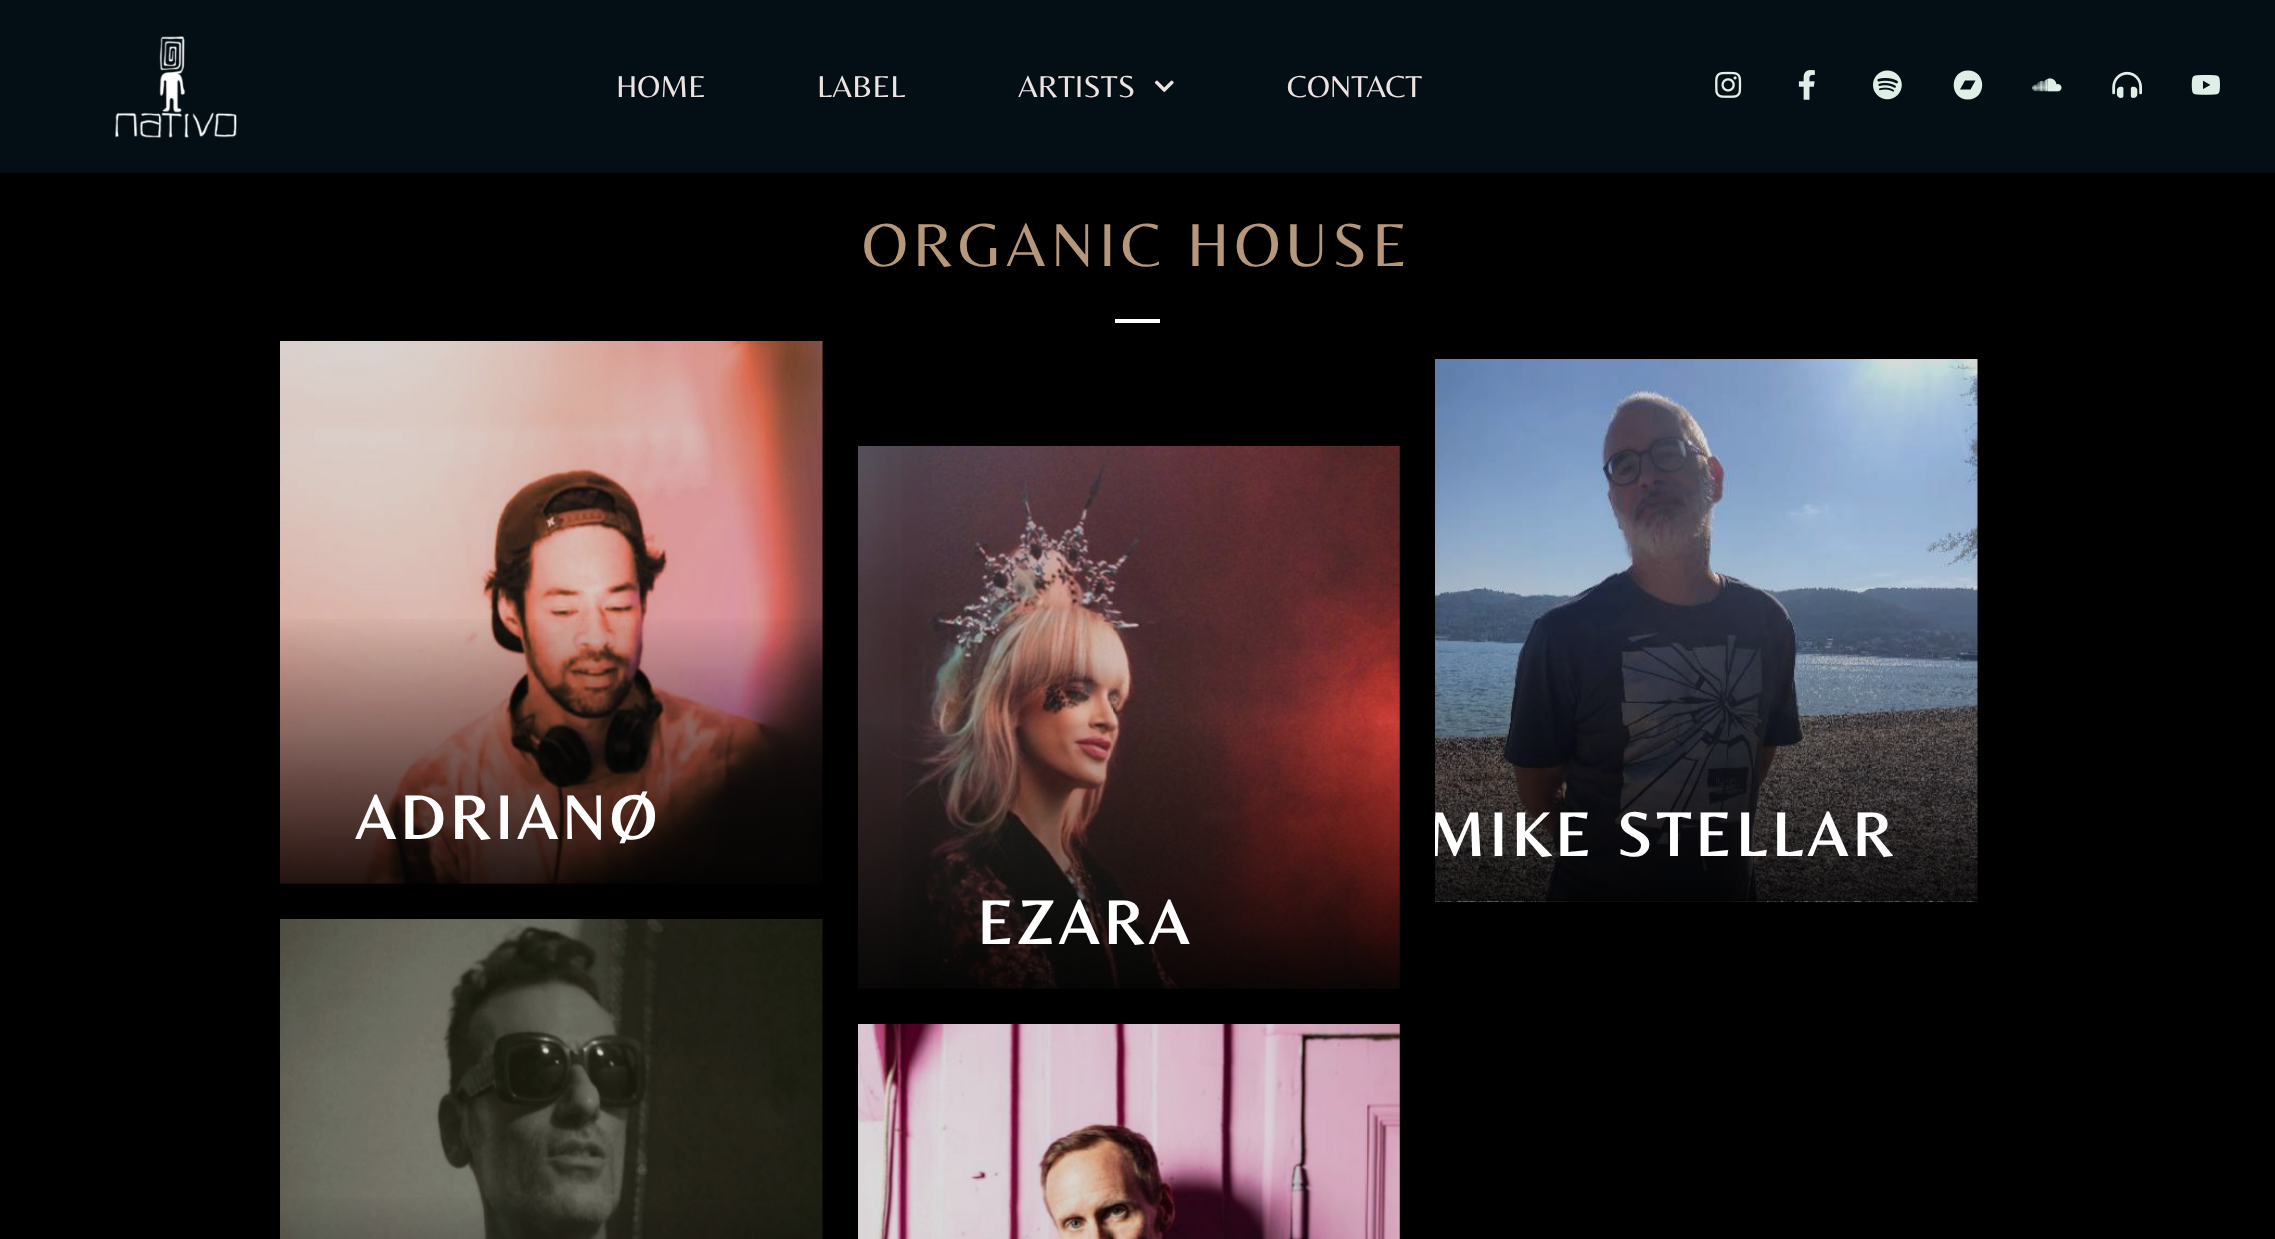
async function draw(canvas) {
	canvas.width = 2275;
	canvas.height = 1239;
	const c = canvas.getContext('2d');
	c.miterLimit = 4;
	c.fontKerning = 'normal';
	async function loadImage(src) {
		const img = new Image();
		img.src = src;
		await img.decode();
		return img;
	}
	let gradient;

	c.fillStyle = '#000';
	c.fillRect(0, 0, 2275, 1239);
	c.fillStyle = '#030f15';
	c.fillRect(0, 0, 2275, 173);
	c.drawImage(await loadImage('img1.png'), 115, 36, 122, 102);
	c.font = '31.5px Belleza';
	c.fillStyle = '#eee3e3';
	for (const [text, x, y] of [
		['HOME', 616, 97],
		['LABEL', 817, 97],
		['ARTISTS', 1018, 97],
	]) {
		c.fillText(text, x, y);
	}
	c.drawImage(await loadImage('img2.png'), 1154, 80, 20, 12);
	c.fillText('CONTACT', 1287, 97);
	c.drawImage(await loadImage('img3.png'), 1715, 71, 27, 27);
	c.drawImage(await loadImage('img4.png'), 1798, 70, 17, 30);
	c.drawImage(await loadImage('img5.png'), 1873, 70, 29, 30);
	c.fillStyle = '#dfefe8';
	c.beginPath();
	c.moveTo(1968, 70.5);
	c.bezierCurveTo(1949, 70.5, 1949, 99.5, 1968, 99.5);
	c.bezierCurveTo(1987, 99.5, 1987, 70.5, 1968, 70.5);
	c.closePath();
	c.moveTo(1970.5, 89.5);
	c.lineTo(1960, 89.5);
	c.lineTo(1965, 80.5);
	c.lineTo(1975.5, 80.5);
	c.closePath();
	c.fill();
	c.drawImage(await loadImage('img6.png'), 2032, 78, 30, 14);
	c.drawImage(await loadImage('img7.png'), 2112, 71, 30, 27);
	c.drawImage(await loadImage('img8.png'), 2191, 74, 29, 21);
	c.letterSpacing = '5.1px';
	c.font = '63px Belleza';
	c.fillStyle = '#b69779';
	c.fillText('ORGANIC HOUSE', 862, 266);
	c.fillStyle = '#fff';
	c.fillRect(1115, 319, 45, 4);
	c.drawImage(await loadImage('img9.png'), 280, 341, 543, 543);
	c.save();
	c.beginPath();
	c.rect(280, 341, 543, 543);
	c.clip();
	c.beginPath();
	c.moveTo(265, 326);
	c.lineTo(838, 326);
	c.lineTo(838, 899);
	c.lineTo(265, 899);
	c.closePath();
	c.moveTo(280, 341);
	c.lineTo(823, 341);
	c.lineTo(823, 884);
	c.lineTo(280, 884);
	c.closePath();
	c.clip('evenodd');
	c.fillStyle = '#00000080';
	c.filter = 'blur(4.5px)';
	c.beginPath();
	c.rect(280, 341, 543, 543);
	c.fill();
	c.filter = 'none';
	c.restore();
	gradient = c.createLinearGradient(551, 341, 551, 884);
	gradient.addColorStop(0.5, '#00000000');
	gradient.addColorStop(0.99, '#000000d4');
	gradient.addColorStop(1, '#000000d9');
	c.fillStyle = gradient;
	c.fillRect(280, 619, 543, 265);
	c.font = 'bold 63px Belleza';
	c.fillStyle = '#fff';
	c.fillText('ADRIANØ', 355, 839);
	c.drawImage(await loadImage('img10.png'), 280, 919, 543, 320);
	gradient = c.createLinearGradient(551, 919, 551, 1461);
	gradient.addColorStop(0.5, '#00000000');
	gradient.addColorStop(0.99, '#000000d4');
	gradient.addColorStop(1, '#000000d9');
	c.fillStyle = gradient;
	c.fillRect(280, 1197, 542, 42);
	c.drawImage(await loadImage('img11.png'), 1435, 359, 543, 543);
	c.save();
	c.beginPath();
	c.rect(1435, 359, 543, 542);
	c.clip();
	c.beginPath();
	c.moveTo(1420, 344);
	c.lineTo(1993, 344);
	c.lineTo(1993, 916);
	c.lineTo(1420, 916);
	c.closePath();
	c.moveTo(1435, 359);
	c.lineTo(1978, 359);
	c.lineTo(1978, 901);
	c.lineTo(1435, 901);
	c.closePath();
	c.clip('evenodd');
	c.fillStyle = '#00000080';
	c.filter = 'blur(4.5px)';
	c.beginPath();
	c.rect(1435, 359, 543, 542);
	c.fill();
	c.filter = 'none';
	c.restore();
	gradient = c.createLinearGradient(1706, 359, 1706, 901);
	gradient.addColorStop(0.5, '#00000000');
	gradient.addColorStop(0.99, '#000000d4');
	gradient.addColorStop(1, '#000000d9');
	c.fillStyle = gradient;
	c.fillRect(1435, 637, 543, 264);
	c.save();
	c.beginPath();
	c.rect(1435, 359, 543, 542);
	c.clip();
	c.fillStyle = '#fff';
	c.fillText('MIKE STELLAR', 1428, 856);
	c.restore();
	c.drawImage(await loadImage('img12.png'), 858, 446, 542, 543);
	gradient = c.createLinearGradient(1129, 446, 1129, 989);
	gradient.addColorStop(0.5, '#00000000');
	gradient.addColorStop(0.99, '#000000d4');
	gradient.addColorStop(1, '#000000d9');
	c.fillStyle = gradient;
	c.fillRect(858, 724, 542, 265);
	c.fillStyle = '#fff';
	c.fillText('EZARA', 977, 944);
	c.drawImage(await loadImage('img13.png'), 858, 1024, 542, 215);
}

draw(document.querySelector('canvas'));
